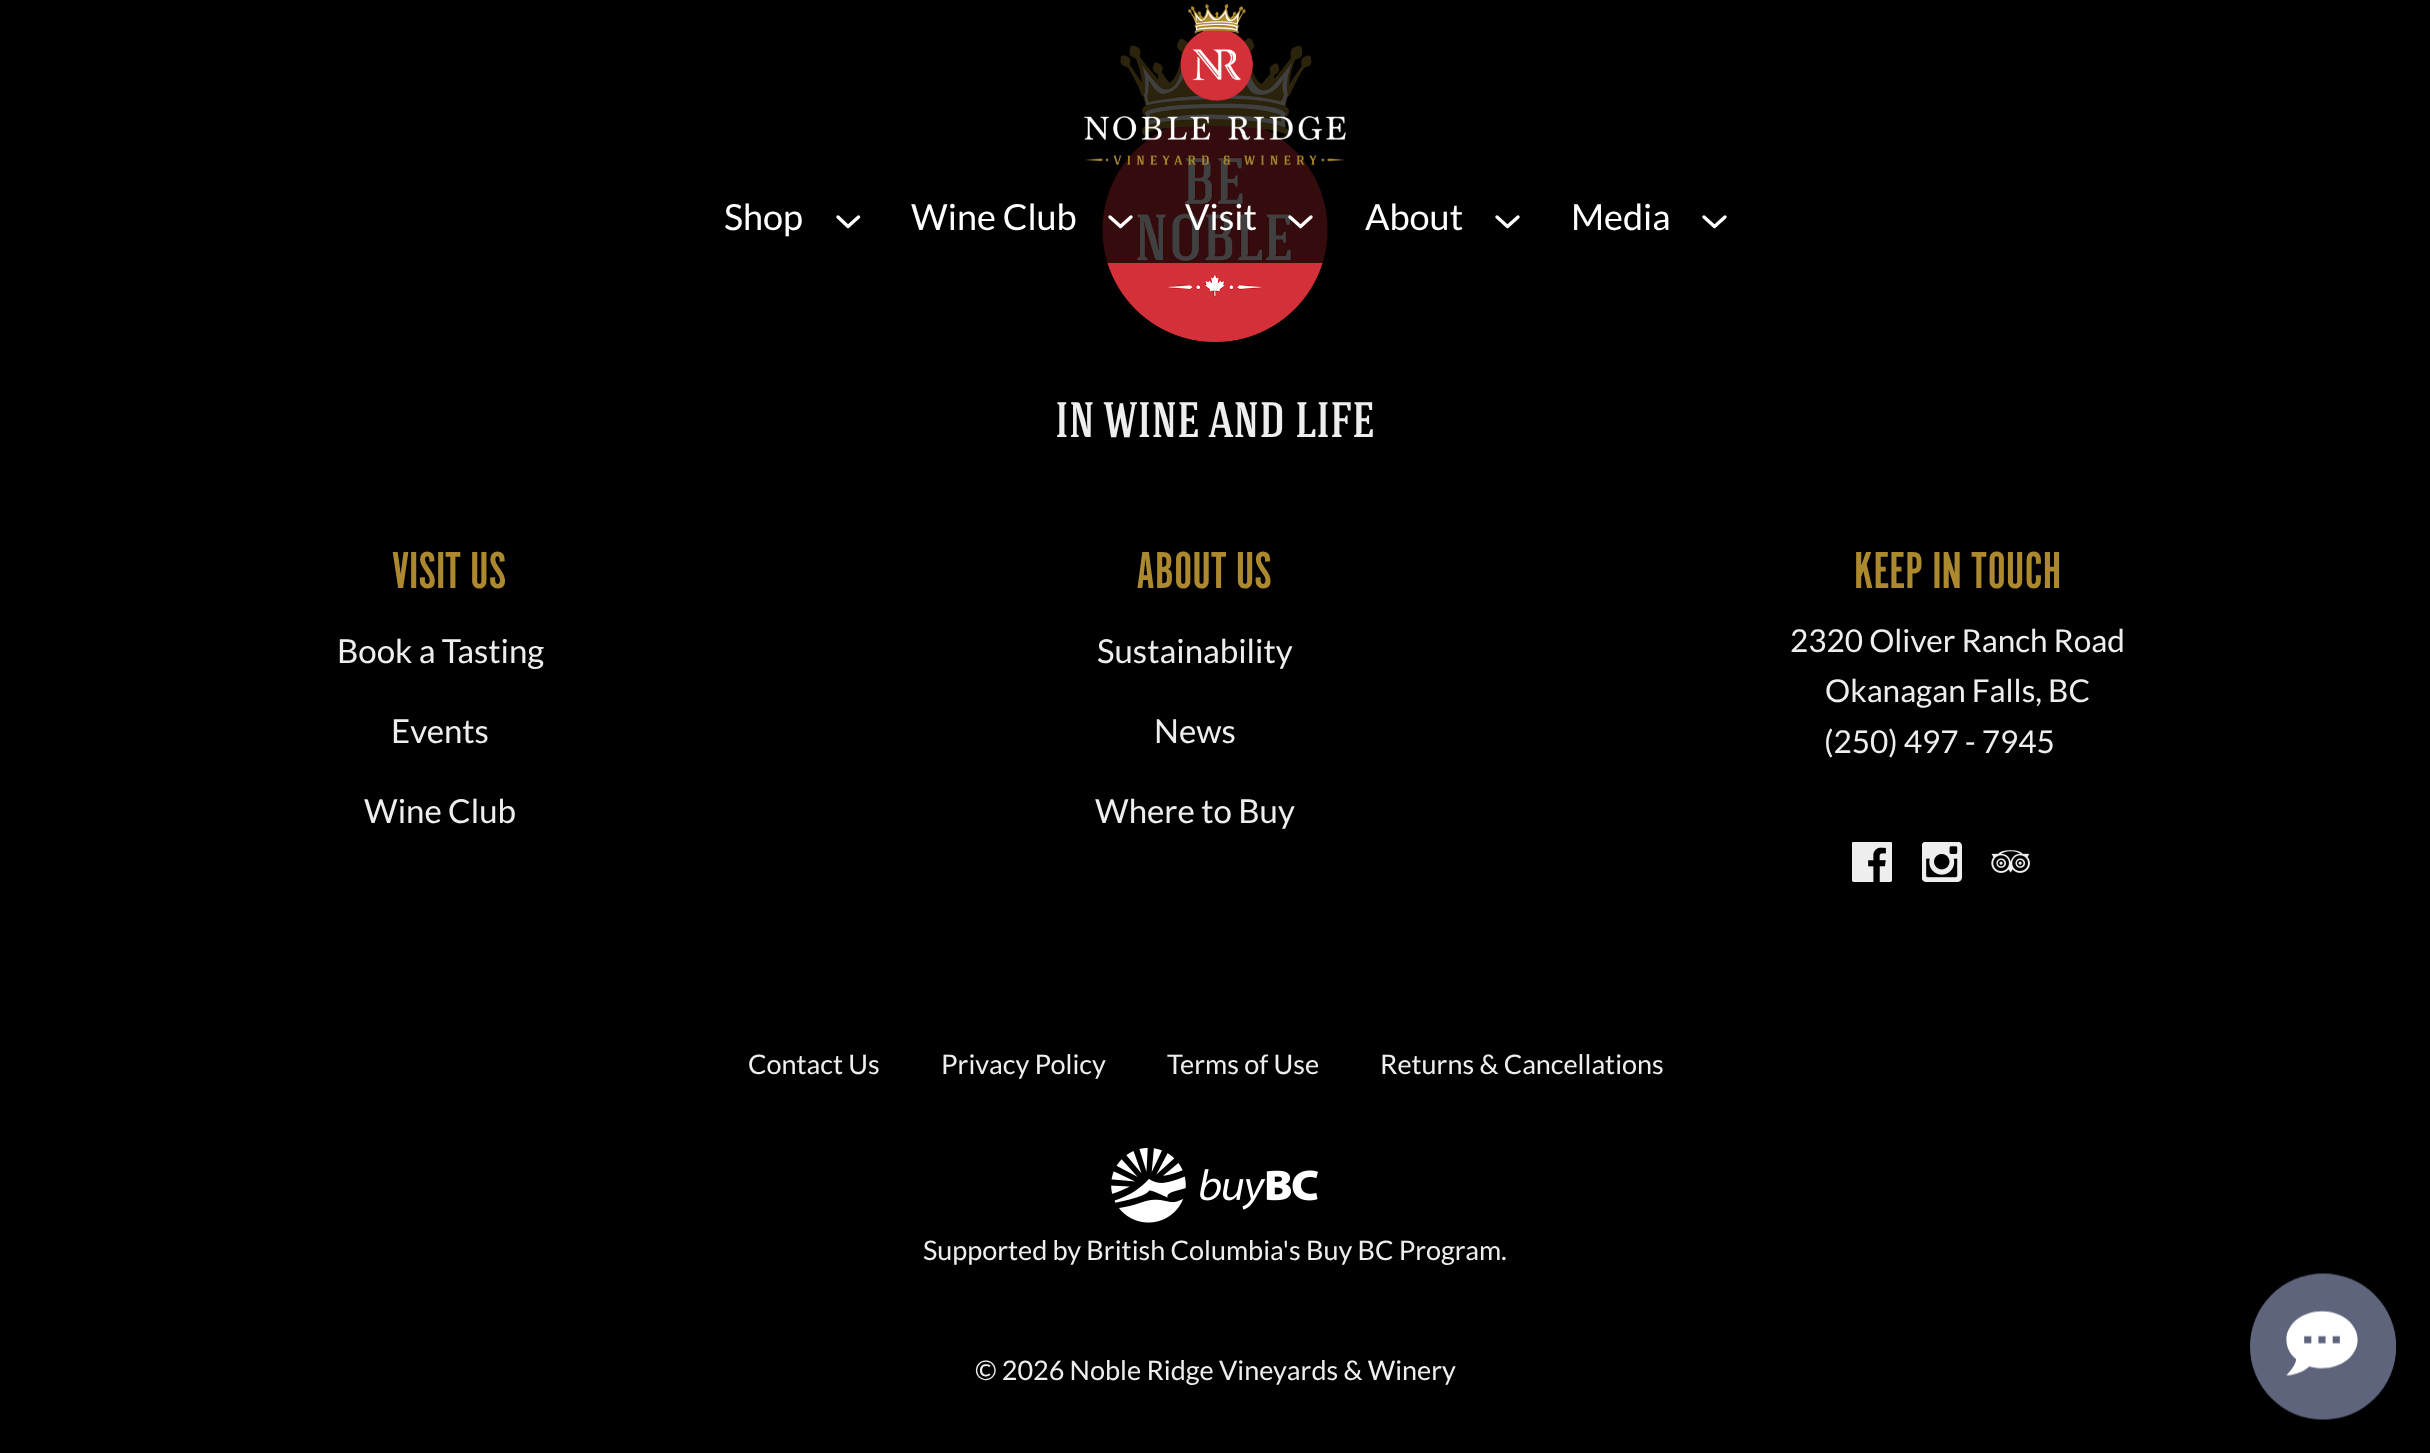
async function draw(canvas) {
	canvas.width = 2430;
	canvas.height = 1453;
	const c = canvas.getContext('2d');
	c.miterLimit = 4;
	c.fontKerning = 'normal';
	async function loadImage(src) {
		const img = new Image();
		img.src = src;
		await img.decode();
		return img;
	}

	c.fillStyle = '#000';
	c.fillRect(0, 0, 2430, 1453);
	c.drawImage(await loadImage('img2.png'), 1102, 38, 226, 304);
	c.fillStyle = '#000000bf';
	c.fillRect(1102, 38, 226, 225);
	c.drawImage(await loadImage('img1.png'), 1084, 4, 262, 162);
	c.font = '36px Lato';
	c.fillStyle = '#fff';
	c.fillText('Shop', 724, 230);
	c.beginPath();
	c.moveTo(838, 217);
	c.lineTo(848, 226.5);
	c.moveTo(858.5, 217);
	c.lineTo(848, 226.5);
	c.strokeStyle = '#fff';
	c.lineWidth = 3.4;
	c.lineCap = 'round';
	c.lineJoin = 'round';
	c.stroke();
	c.fillText('Wine Club', 911, 230);
	c.beginPath();
	c.moveTo(1110, 217);
	c.lineTo(1120.5, 226.5);
	c.moveTo(1131, 217);
	c.lineTo(1120.5, 226.5);
	c.stroke();
	c.fillText('Visit', 1185, 230);
	c.beginPath();
	c.moveTo(1290, 217);
	c.lineTo(1300.5, 226.5);
	c.moveTo(1311, 217);
	c.lineTo(1300.5, 226.5);
	c.stroke();
	c.fillText('About', 1365, 230);
	c.beginPath();
	c.moveTo(1497, 217);
	c.lineTo(1507.5, 226.5);
	c.moveTo(1518, 217);
	c.lineTo(1507.5, 226.5);
	c.stroke();
	c.fillText('Media', 1571, 230);
	c.beginPath();
	c.moveTo(1704, 217);
	c.lineTo(1714.5, 226.5);
	c.moveTo(1725, 217);
	c.lineTo(1714.5, 226.5);
	c.stroke();
	c.font = '500 49.5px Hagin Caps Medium';
	c.fillStyle = '#eee';
	c.fillText('IN WINE AND LIFE', 1055, 437);
	c.font = '54px "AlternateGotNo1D"';
	c.fillStyle = '#ac892f';
	c.fillText('VISIT US', 392, 588);
	c.font = '33px Lato';
	c.fillStyle = '#eee';
	for (const [text, x, y] of [
		['Book a Tasting', 337, 663],
		['Events', 391, 743],
		['Wine Club', 364, 823],
	]) {
		c.fillText(text, x, y);
	}
	c.font = '54px "AlternateGotNo1D"';
	c.fillStyle = '#ac892f';
	c.fillText('ABOUT US', 1136, 588);
	c.font = '33px Lato';
	c.fillStyle = '#eee';
	for (const [text, x, y] of [
		['Sustainability', 1097, 663],
		['News', 1154, 743],
		['Where to Buy', 1095, 823],
	]) {
		c.fillText(text, x, y);
	}
	c.font = '54px "AlternateGotNo1D"';
	c.fillStyle = '#ac892f';
	c.fillText('KEEP IN TOUCH', 1854, 588);
	c.font = '31.5px Lato';
	c.fillStyle = '#eee';
	for (const [text, x, y] of [
		['2320 Oliver Ranch Road', 1790, 652],
		['Okanagan Falls, BC', 1825, 702],
		['(250) 497 - 7945', 1824, 753],
	]) {
		c.fillText(text, x, y);
	}
	c.drawImage(await loadImage('img3.png'), 1852, 842, 40, 40);
	c.drawImage(await loadImage('img4.png'), 1922, 842, 40, 40);
	c.drawImage(await loadImage('img5.png'), 1991, 850, 39, 23);
	c.font = '27px Lato';
	for (const [text, x, y] of [
		['Contact Us', 748, 1074],
		['Privacy Policy', 941, 1074],
		['Terms of Use', 1167, 1074],
		['Returns & Cancellations', 1380, 1074],
	]) {
		c.fillText(text, x, y);
	}
	c.drawImage(await loadImage('img6.png'), 1111, 1147, 207, 76);
	c.fillText('Supported by British Columbia\'s Buy BC Program.', 923, 1260);
	c.fillText('© 2026 Noble Ridge Vineyards & Winery', 975, 1380);
	c.drawImage(await loadImage('img7.png'), 2250, 1273, 147, 147);
}

draw(document.querySelector('canvas'));
